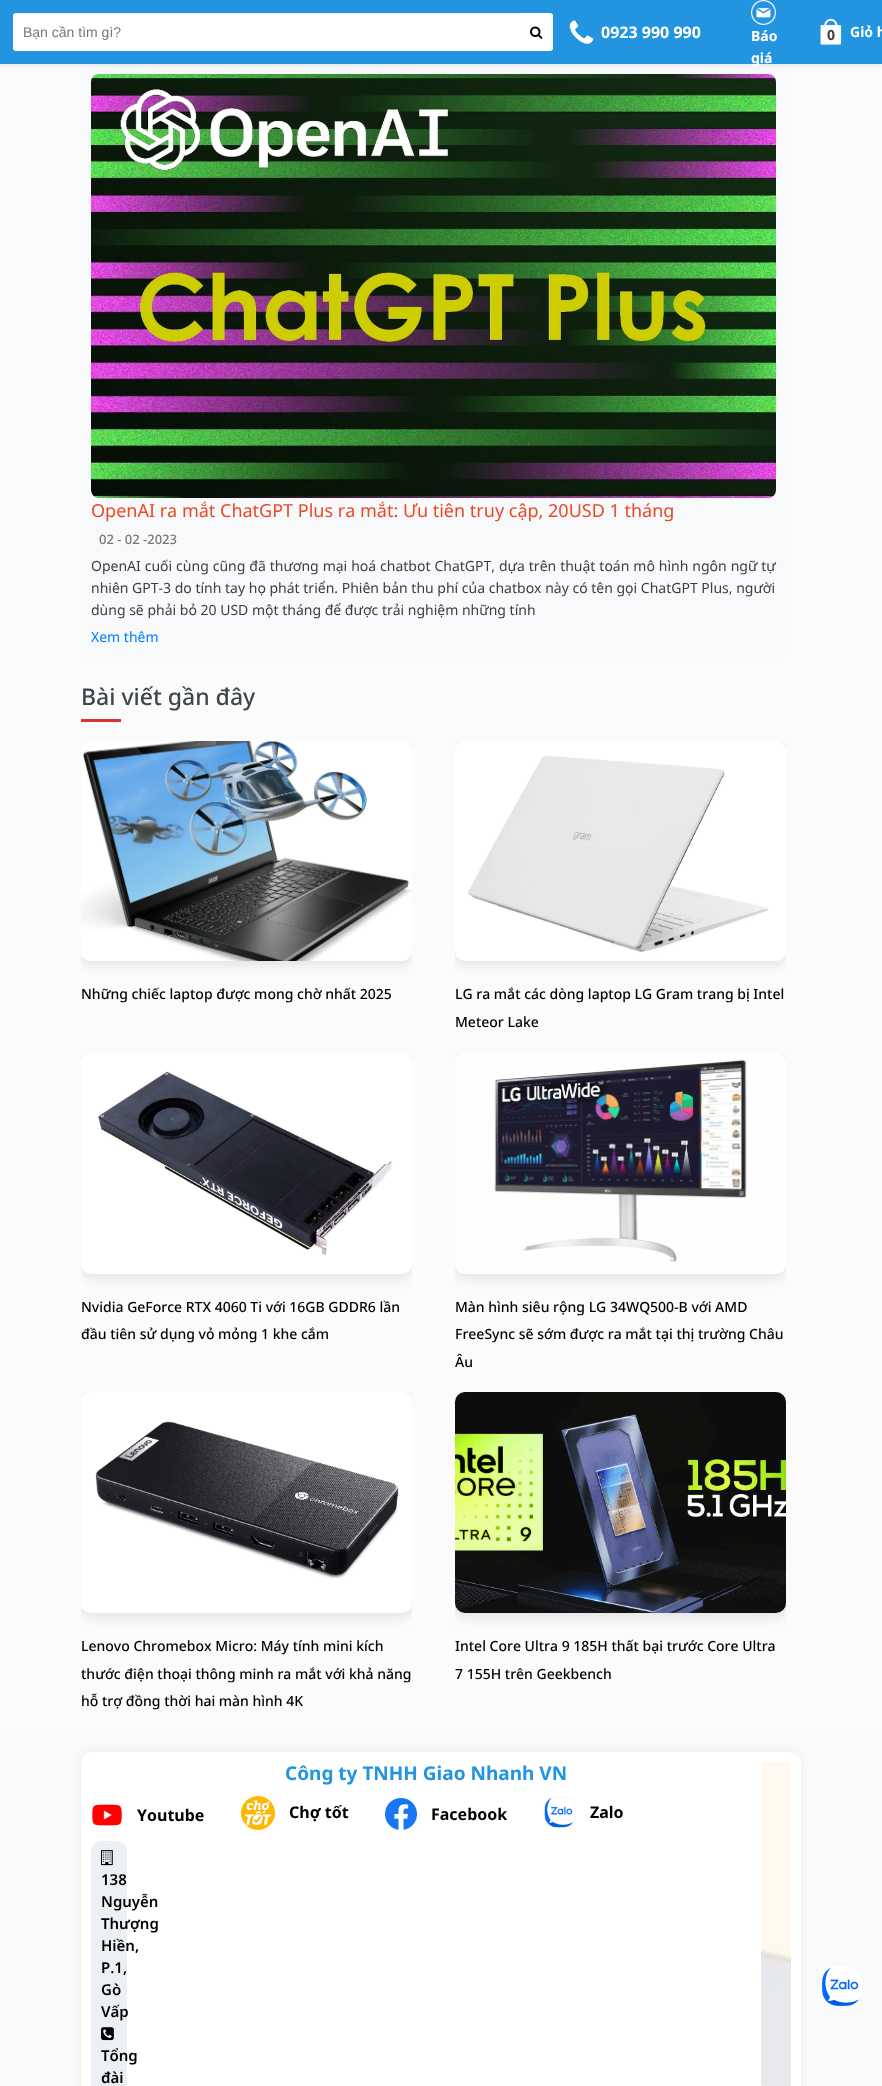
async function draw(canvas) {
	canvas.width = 882;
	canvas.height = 2086;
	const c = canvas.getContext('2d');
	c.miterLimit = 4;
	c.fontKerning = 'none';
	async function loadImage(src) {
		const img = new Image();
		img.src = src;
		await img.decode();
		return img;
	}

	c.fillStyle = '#fbfbfb';
	c.fillRect(0, 0, 882, 2086);
	c.fillStyle = '#f7f9fb';
	c.beginPath();
	c.roundRect(81, 64, 705, 594, 10);
	c.fill();
	c.fillStyle = '#00000012';
	c.filter = 'blur(2px)';
	c.beginPath();
	c.rect(0, 2, 882, 64);
	c.fill();
	c.filter = 'none';
	c.fillStyle = '#2294e0';
	c.fillRect(0, 0, 882, 64);
	c.fillStyle = '#fff';
	c.beginPath();
	c.roundRect(13, 13, 507, 38, [3, 0, 0, 3]);
	c.fill();
	c.fillStyle = '#00000014';
	c.beginPath();
	c.moveTo(16, 14);
	c.lineTo(520, 14);
	c.lineTo(520, 13);
	c.lineTo(16, 13);
	c.bezierCurveTo(14, 13, 13, 15, 13, 17);
	c.bezierCurveTo(13, 15, 14, 14, 16, 14);
	c.closePath();
	c.fill();
	c.font = '14px Liberation Sans';
	c.fillStyle = '#777';
	c.fillText('Bạn cần tìm gì?', 23, 37);
	c.fillStyle = '#fff';
	c.beginPath();
	c.roundRect(520, 13, 33, 38, [0, 3, 3, 0]);
	c.fill();
	c.drawImage(await loadImage('img1.png'), 530, 26, 13, 13);
	c.drawImage(await loadImage('img2.png'), 569, 20, 25, 24);
	c.font = 'bold 16px Noto Sans';
	c.fillText('0923 990 990', 601, 38);
	c.drawImage(await loadImage('img3.png'), 751, 0, 25, 25);
	c.font = 'bold 14px Noto Sans';
	c.fillText('Báo', 751, 41);
	c.fillText('giá', 751, 63);
	c.drawImage(await loadImage('img4.png'), 820, 18, 22, 27);
	c.fillStyle = '#3c3d41';
	c.fillText('0', 827, 40);
	c.fillStyle = '#fff';
	c.fillText('Giỏ h', 850, 37);
	c.fillStyle = '#e5e6ec';
	c.beginPath();
	c.roundRect(91, 74, 685, 424, 8);
	c.fill();
	c.drawImage(await loadImage('img5.png'), 91, 74, 685, 424);
	c.font = '18px Noto Sans';
	c.fillStyle = '#eb4826';
	c.fillText('OpenAI ra mắt ChatGPT Plus ra mắt: Ưu tiên truy cập, 20USD 1 tháng', 91, 517);
	c.font = '500 13px Noto Sans';
	c.fillStyle = '#777';
	c.fillText('02 - 02 -2023', 99, 544);
	c.wordSpacing = '0.3px';
	c.font = '14px Noto Sans';
	c.fillStyle = '#3c3d41';
	c.fillText('OpenAI cuối cùng cũng đã thương mại hoá chatbot ChatGPT, dựa trên thuật toán mô hình ngôn ngữ tự', 91, 571);
	c.wordSpacing = '0px';
	c.fillText('nhiên GPT-3 do tính tay họ phát triển. Phiên bản thu phí của chatbox này có tên gọi ChatGPT Plus, người', 91, 593);
	c.fillText('dùng sẽ phải bỏ 20 USD một tháng để được trải nghiệm những tính', 91, 615);
	c.fillStyle = '#007bff';
	c.fillText('Xem thêm', 91, 642);
	c.font = '500 23px Noto Sans';
	c.fillStyle = '#3d464d';
	c.fillText('Bài viết gần đây', 81, 705);
	c.fillStyle = '#d33';
	c.fillRect(81, 719, 40, 3);
	c.save();
	c.beginPath();
	c.rect(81, 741, 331, 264);
	c.clip();
	c.fillStyle = '#0000001a';
	c.filter = 'blur(6px)';
	c.beginPath();
	c.roundRect(81, 745, 331, 220, 10);
	c.fill();
	c.filter = 'none';
	c.restore();
	c.fillStyle = '#f5f5f5';
	c.beginPath();
	c.roundRect(81, 741, 331, 220, 10);
	c.fill();
	c.drawImage(await loadImage('img6.png'), 81, 741, 331, 220);
	c.font = '500 14px Noto Sans';
	c.fillStyle = '#000';
	c.fillText('Những chiếc laptop được mong chờ nhất 2025', 81, 999);
	c.save();
	c.beginPath();
	c.rect(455, 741, 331, 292);
	c.clip();
	c.fillStyle = '#0000001a';
	c.filter = 'blur(6px)';
	c.beginPath();
	c.roundRect(455, 745, 331, 220, 10);
	c.fill();
	c.filter = 'none';
	c.restore();
	c.fillStyle = '#f5f5f5';
	c.beginPath();
	c.roundRect(455, 741, 331, 220, 10);
	c.fill();
	c.drawImage(await loadImage('img7.png'), 455, 741, 331, 220);
	c.fillStyle = '#000';
	c.fillText('LG ra mắt các dòng laptop LG Gram trang bị Intel', 455, 999);
	c.fillText('Meteor Lake', 455, 1027);
	c.save();
	c.beginPath();
	c.rect(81, 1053, 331, 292);
	c.clip();
	c.fillStyle = '#0000001a';
	c.filter = 'blur(6px)';
	c.beginPath();
	c.roundRect(81, 1057, 331, 221, 10);
	c.fill();
	c.filter = 'none';
	c.restore();
	c.fillStyle = '#f5f5f5';
	c.beginPath();
	c.roundRect(81, 1053, 331, 221, 10);
	c.fill();
	c.drawImage(await loadImage('img8.png'), 81, 1053, 331, 221);
	c.fillStyle = '#000';
	c.fillText('Nvidia GeForce RTX 4060 Ti với 16GB GDDR6 lần', 81, 1312);
	c.fillText('đầu tiên sử dụng vỏ mỏng 1 khe cắm', 81, 1339);
	c.save();
	c.beginPath();
	c.rect(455, 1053, 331, 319);
	c.clip();
	c.fillStyle = '#0000001a';
	c.filter = 'blur(6px)';
	c.beginPath();
	c.roundRect(455, 1057, 331, 221, 10);
	c.fill();
	c.filter = 'none';
	c.restore();
	c.fillStyle = '#f5f5f5';
	c.beginPath();
	c.roundRect(455, 1053, 331, 221, 10);
	c.fill();
	c.drawImage(await loadImage('img9.png'), 455, 1053, 331, 221);
	c.fillStyle = '#000';
	for (const [text, x, y] of [
		['Màn hình siêu rộng LG 34WQ500-B với AMD', 455, 1312],
		['FreeSync sẽ sớm được ra mắt tại thị trường Châu', 455, 1339],
		['Âu', 455, 1367],
	]) {
		c.fillText(text, x, y);
	}
	c.save();
	c.beginPath();
	c.rect(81, 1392, 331, 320);
	c.clip();
	c.fillStyle = '#0000001a';
	c.filter = 'blur(6px)';
	c.beginPath();
	c.roundRect(81, 1396, 331, 221, 10);
	c.fill();
	c.filter = 'none';
	c.restore();
	c.fillStyle = '#f5f5f5';
	c.beginPath();
	c.roundRect(81, 1392, 331, 221, 10);
	c.fill();
	c.drawImage(await loadImage('img10.png'), 81, 1392, 331, 221);
	c.fillStyle = '#000';
	for (const [text, x, y] of [
		['Lenovo Chromebox Micro: Máy tính mini kích', 81, 1651],
		['thước điện thoại thông minh ra mắt với khả năng', 81, 1679],
		['hỗ trợ đồng thời hai màn hình 4K', 81, 1706],
	]) {
		c.fillText(text, x, y);
	}
	c.save();
	c.beginPath();
	c.rect(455, 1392, 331, 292);
	c.clip();
	c.fillStyle = '#0000001a';
	c.filter = 'blur(6px)';
	c.beginPath();
	c.roundRect(455, 1396, 331, 221, 10);
	c.fill();
	c.filter = 'none';
	c.restore();
	c.fillStyle = '#f5f5f5';
	c.beginPath();
	c.roundRect(455, 1392, 331, 221, 10);
	c.fill();
	c.drawImage(await loadImage('img11.png'), 455, 1392, 331, 221);
	c.fillStyle = '#000';
	c.fillText('Intel Core Ultra 9 185H thất bại trước Core Ultra', 455, 1651);
	c.fillText('7 155H trên Geekbench', 455, 1679);
	c.fillStyle = '#f8fafc';
	c.fillRect(0, 1732, 882, 354);
	c.fillStyle = '#0000000f';
	c.filter = 'blur(6px)';
	c.beginPath();
	c.roundRect(81, 1752, 720, 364, 12);
	c.fill();
	c.filter = 'none';
	c.fillStyle = '#fff';
	c.beginPath();
	c.roundRect(81, 1752, 720, 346, 12);
	c.fill();
	c.font = 'bold 19px Noto Sans';
	c.fillStyle = '#2294e0';
	c.fillText('Công ty TNHH Giao Nhanh VN', 285, 1780);
	c.drawImage(await loadImage('img12.png'), 92, 1804, 31, 22);
	c.font = 'bold 16px Noto Sans';
	c.fillStyle = '#000';
	c.fillText('Youtube', 137, 1821);
	c.drawImage(await loadImage('img13.png'), 241, 1796, 34, 34);
	c.fillText('Chợ tốt', 289, 1818);
	c.drawImage(await loadImage('img14.png'), 385, 1798, 32, 32);
	c.fillText('Facebook', 431, 1820);
	c.drawImage(await loadImage('img15.png'), 544, 1796, 32, 32);
	c.fillText('Zalo', 590, 1818);
	c.fillStyle = '#ecf0f4';
	c.beginPath();
	c.roundRect(91, 1841, 36, 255, 10);
	c.fill();
	c.drawImage(await loadImage('img16.png'), 101, 1850, 12, 16);
	c.font = '600 15px Noto Sans';
	c.fillStyle = '#000';
	for (const [text, x, y] of [
		['138', 101, 1885],
		['Nguyễn', 101, 1907],
		['Thượng', 101, 1929],
		['Hiền,', 101, 1951],
		['P.1,', 101, 1973],
		['Gò', 101, 1995],
		['Vấp', 101, 2017],
	]) {
		c.fillText(text, x, y);
	}
	c.drawImage(await loadImage('img17.png'), 101, 2027, 13, 14);
	c.fillText('Tổng', 101, 2061);
	c.fillText('đài', 101, 2083);
	c.drawImage(await loadImage('img18.png'), 761, 1762, 30, 324);
	c.drawImage(await loadImage('img19.png'), 822, 1966, 40, 40);
}

draw(document.querySelector('canvas'));
